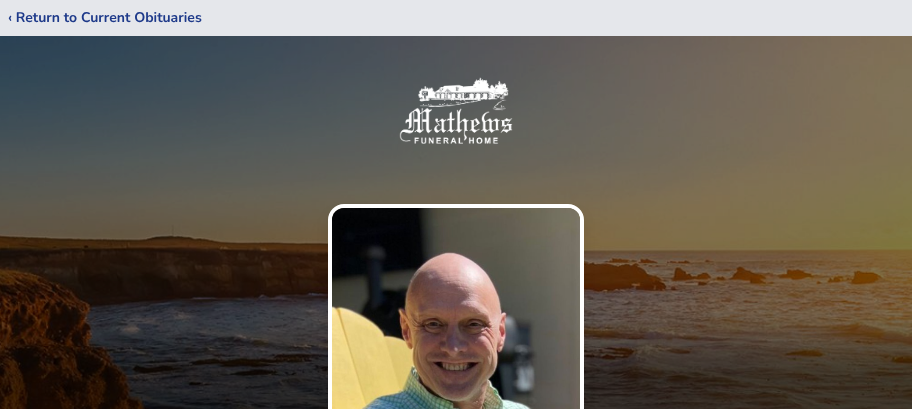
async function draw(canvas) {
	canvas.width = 912;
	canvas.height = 409;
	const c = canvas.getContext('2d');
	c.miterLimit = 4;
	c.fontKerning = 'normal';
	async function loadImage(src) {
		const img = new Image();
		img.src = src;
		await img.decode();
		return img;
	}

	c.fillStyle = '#e5e7eb';
	c.fillRect(0, 0, 912, 409);
	c.font = 'bold 14px Nunito';
	c.fillStyle = '#1e3a8a';
	c.fillText('‹ Return to Current Obituaries', 8, 22);
	c.drawImage(await loadImage('img1.png'), 0, 36, 912, 373);
	c.drawImage(await loadImage('img2.png'), 399, 77, 114, 67);
	c.fillStyle = '#0000001a';
	c.filter = 'blur(7.5px)';
	c.beginPath();
	c.roundRect(331, 217, 250, 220, 5);
	c.fill();
	c.filter = 'none';
	c.beginPath();
	c.roundRect(330, 206, 252, 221, 14);
	c.strokeStyle = '#fff';
	c.lineWidth = 4;
	c.stroke();
	c.drawImage(await loadImage('img3.png'), 332, 208, 248, 201);
}

draw(document.querySelector('canvas'));
